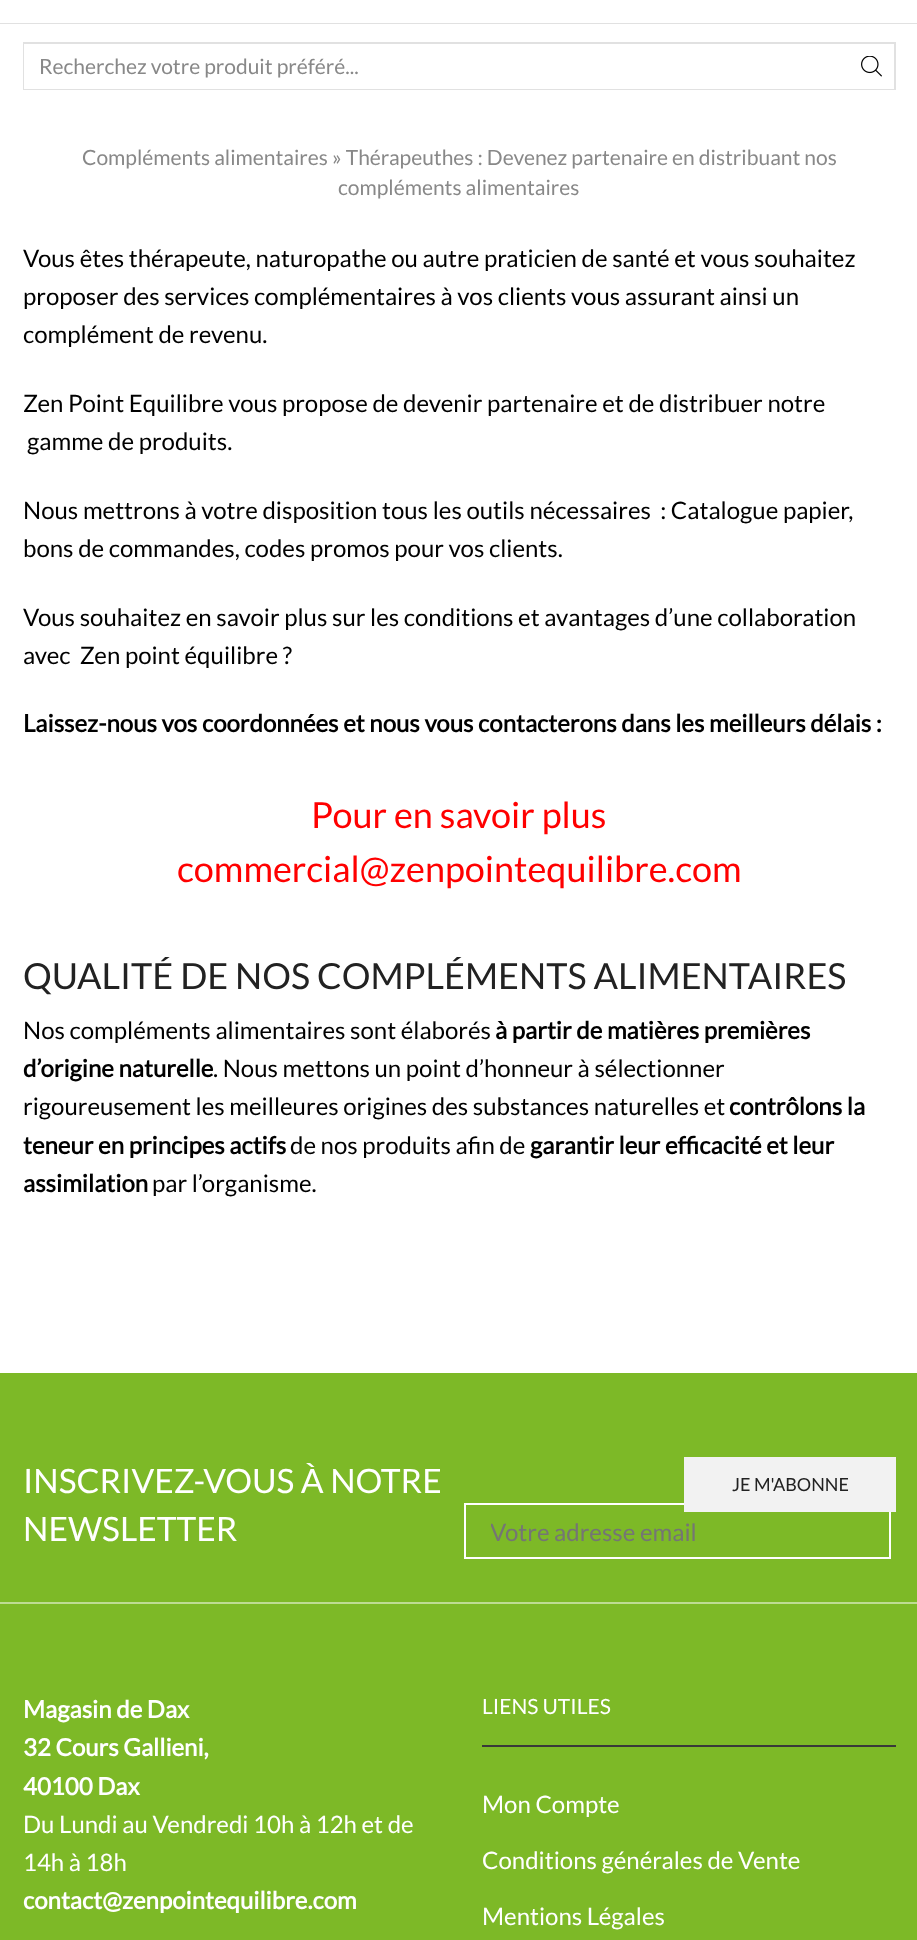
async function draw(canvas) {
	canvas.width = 917;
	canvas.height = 1940;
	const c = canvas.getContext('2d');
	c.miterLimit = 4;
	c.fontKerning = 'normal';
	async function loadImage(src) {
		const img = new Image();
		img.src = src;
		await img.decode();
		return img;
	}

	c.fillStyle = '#fff';
	c.fillRect(0, 0, 917, 1940);
	c.fillStyle = '#e1e1e1';
	c.fillRect(0, 23, 917, 1);
	c.strokeStyle = '#e1e1e1';
	c.lineWidth = 2;
	c.strokeRect(24, 43, 871, 46);
	c.fillStyle = '#fff';
	c.fillRect(24, 44, 825, 45);
	c.font = '21px Lato';
	c.fillStyle = '#888';
	c.fillText('Recherchez votre produit préféré...', 39, 74);
	c.fillStyle = '#fff';
	c.fillRect(849, 88, 45, 1);
	c.drawImage(await loadImage('img1.png'), 861, 56, 21, 21);
	c.fillStyle = '#888';
	c.fillText('Compléments alimentaires » Thérapeuthes : Devenez partenaire en distribuant nos', 82, 165);
	c.fillText('compléments alimentaires', 338, 195);
	c.font = '24px Lato';
	c.fillStyle = '#000';
	for (const [text, x, y] of [
		['Vous êtes thérapeute, naturopathe ou autre praticien de santé et vous souhaitez', 23, 267],
		['proposer des services complémentaires à vos clients vous assurant ainsi un', 23, 305],
		['complément de revenu.', 23, 343],
		['Zen Point Equilibre vous propose de devenir partenaire et de distribuer notre', 23, 412],
		['gamme de produits.', 27, 450],
		['Nous mettrons à votre disposition tous les outils nécessaires  : Catalogue papier,', 23, 519],
		['bons de commandes, codes promos pour vos clients.', 23, 557],
		['Vous souhaitez en savoir plus sur les conditions et avantages d’une collaboration', 23, 626],
		['avec  Zen point équilibre ?', 23, 664],
	]) {
		c.fillText(text, x, y);
	}
	c.font = 'bold 24px Lato';
	c.fillText('Laissez-nous vos coordonnées et nous vous contacterons dans les meilleurs délais :', 23, 732);
	c.font = '36px Lato';
	c.fillStyle = '#f00';
	c.fillText('Pour en savoir plus', 311, 828);
	c.fillText('commercial@zenpointequilibre.com', 177, 882);
	c.fillStyle = '#222';
	c.fillText('QUALITÉ DE NOS COMPLÉMENTS ALIMENTAIRES', 23, 989);
	c.font = '24px Lato';
	c.fillStyle = '#000';
	c.fillText('Nos compléments alimentaires sont élaborés', 23, 1039);
	c.font = 'bold 24px Lato';
	c.fillText('à partir de matières premières', 495, 1039);
	c.fillText('d’origine naturelle', 23, 1077);
	c.font = '24px Lato';
	c.fillText('. Nous mettons un point d’honneur à sélectionner', 213, 1077);
	c.fillText('rigoureusement les meilleures origines des substances naturelles et', 23, 1115);
	c.font = 'bold 24px Lato';
	c.fillText('contrôlons la', 729, 1115);
	c.fillText('teneur en principes actifs', 23, 1154);
	c.font = '24px Lato';
	c.fillText('de nos produits afin de', 290, 1154);
	c.font = 'bold 24px Lato';
	c.fillText('garantir leur efficacité et leur', 530, 1154);
	c.fillText('assimilation', 23, 1192);
	c.font = '24px Lato';
	c.fillText('par l’organisme.', 152, 1192);
	c.fillStyle = '#7db927';
	c.fillRect(0, 1373, 917, 229);
	c.fillStyle = '#bedc93';
	c.fillRect(0, 1602, 917, 2);
	c.font = '33.6px Lato';
	c.fillStyle = '#fff';
	c.fillText('INSCRIVEZ-VOUS À NOTRE', 23, 1493);
	c.fillText('NEWSLETTER', 23, 1541);
	c.strokeStyle = '#fff';
	c.strokeRect(465, 1504, 425, 54);
	c.fillStyle = '#f2f2f2';
	c.fillRect(684, 1457, 212, 55);
	c.font = '18px Lato';
	c.fillStyle = '#222';
	c.fillText('JE M\'ABONNE', 732, 1491);
	c.save();
	c.beginPath();
	c.rect(491, 1517, 373, 28);
	c.clip();
	c.font = '24px Lato';
	c.fillStyle = '#757575';
	c.fillText('Votre adresse email', 490, 1541);
	c.restore();
	c.fillStyle = '#7db927';
	c.fillRect(0, 1604, 917, 336);
	c.font = 'bold 24px Lato';
	c.fillStyle = '#fff';
	for (const [text, x, y] of [
		['Magasin de Dax', 23, 1718],
		['32 Cours Gallieni,', 23, 1756],
		['40100 Dax', 23, 1795],
	]) {
		c.fillText(text, x, y);
	}
	c.font = '24px Lato';
	c.fillText('Du Lundi au Vendredi 10h à 12h et de', 23, 1833);
	c.fillText('14h à 18h', 23, 1871);
	c.font = 'bold 24px Lato';
	c.fillText('contact@zenpointequilibre.com', 23, 1909);
	c.fillStyle = '#393939';
	c.fillRect(482, 1745, 414, 2);
	c.font = '21px Lato';
	c.fillStyle = '#fff';
	c.fillText('LIENS UTILES', 482, 1714);
	c.font = '24px Lato';
	for (const [text, x, y] of [
		['Mon Compte', 482, 1813],
		['Conditions générales de Vente', 482, 1869],
		['Mentions Légales', 482, 1925],
	]) {
		c.fillText(text, x, y);
	}
}

draw(document.querySelector('canvas'));
